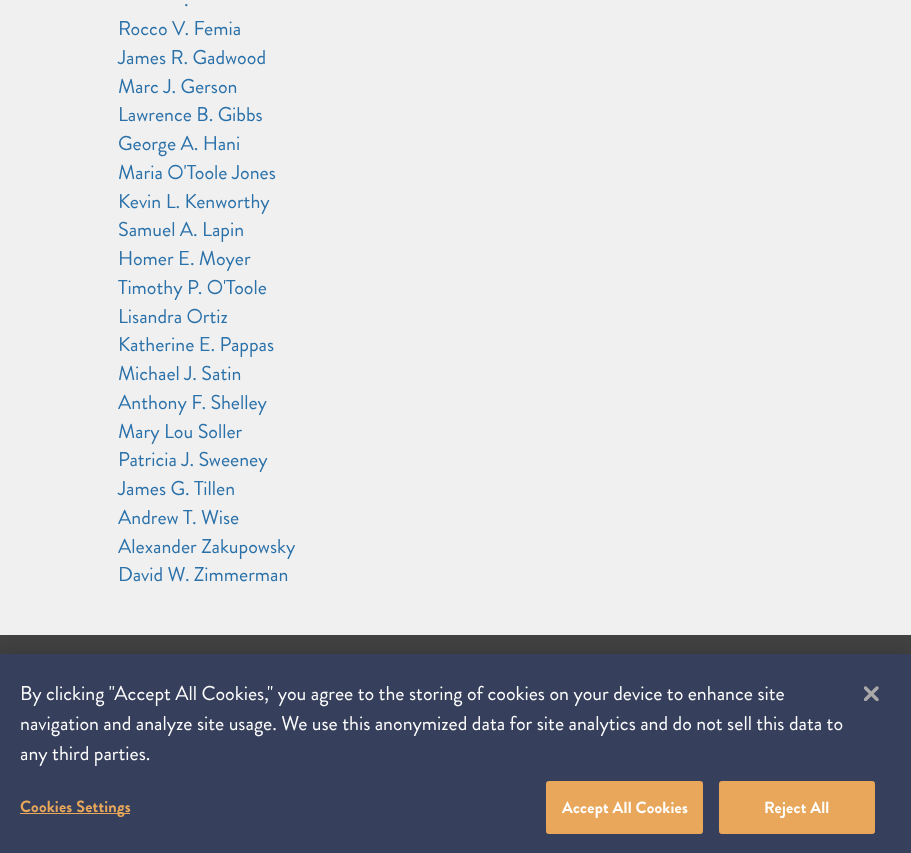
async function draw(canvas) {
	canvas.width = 911;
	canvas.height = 853;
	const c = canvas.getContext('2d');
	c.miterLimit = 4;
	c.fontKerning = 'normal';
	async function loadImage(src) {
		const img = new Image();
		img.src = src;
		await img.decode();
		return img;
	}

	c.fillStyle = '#f0f0f0';
	c.fillRect(0, 0, 911, 853);
	c.font = '20px Brandon Grotesque';
	c.fillStyle = '#2b71a9';
	for (const [text, x, y] of [
		['.', 184, 6],
		['Rocco V. Femia', 118, 35],
		['James R. Gadwood', 118, 64],
		['Marc J. Gerson', 118, 93],
		['Lawrence B. Gibbs', 118, 121],
		['George A. Hani', 118, 150],
		['Maria O\'Toole Jones', 118, 179],
		['Kevin L. Kenworthy', 118, 208],
		['Samuel A. Lapin', 118, 236],
		['Homer E. Moyer', 118, 265],
		['Timothy P. O\'Toole', 118, 294],
		['Lisandra Ortiz', 118, 323],
		['Katherine E. Pappas', 118, 351],
		['Michael J. Satin', 118, 380],
		['Anthony F. Shelley', 118, 409],
		['Mary Lou Soller', 118, 438],
		['Patricia J. Sweeney', 118, 466],
		['James G. Tillen', 118, 495],
		['Andrew T. Wise', 118, 524],
		['Alexander Zakupowsky', 118, 553],
		['David W. Zimmerman', 118, 581],
	]) {
		c.fillText(text, x, y);
	}
	c.fillStyle = '#424242';
	c.fillRect(0, 635, 911, 19);
	c.fillStyle = '#00000033';
	c.filter = 'blur(11px)';
	c.beginPath();
	c.rect(0, 654, 911, 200);
	c.fill();
	c.filter = 'none';
	c.fillStyle = '#363f5c';
	c.fillRect(0, 654, 911, 199);
	c.fillStyle = '#fff';
	for (const [text, x, y] of [
		['By clicking "Accept All Cookies," you agree to the storing of cookies on your device to enhance site', 20, 700],
		['navigation and analyze site usage. We use this anonymized data for site analytics and do not sell this data to', 20, 730],
		['any third parties.', 20, 760],
	]) {
		c.fillText(text, x, y);
	}
	c.fillStyle = '#e8a75a';
	c.fillRect(20, 813, 110, 1);
	c.letterSpacing = '0.2px';
	c.font = 'bold 16.25px Brandon Grotesque';
	c.fillText('Cookies Settings', 20, 812);
	c.beginPath();
	c.roundRect(546.5, 781.5, 156, 52, 2);
	c.fill();
	c.strokeStyle = '#e8a75a';
	c.stroke();
	c.fillStyle = '#fff';
	c.fillText('Accept All Cookies', 562, 813);
	c.fillStyle = '#e8a75a';
	c.beginPath();
	c.roundRect(719.5, 781.5, 155, 52, 2);
	c.fill();
	c.stroke();
	c.fillStyle = '#fff';
	c.fillText('Reject All', 764, 813);
	c.drawImage(await loadImage('img1.png'), 864, 686, 15, 15);
}

draw(document.querySelector('canvas'));
